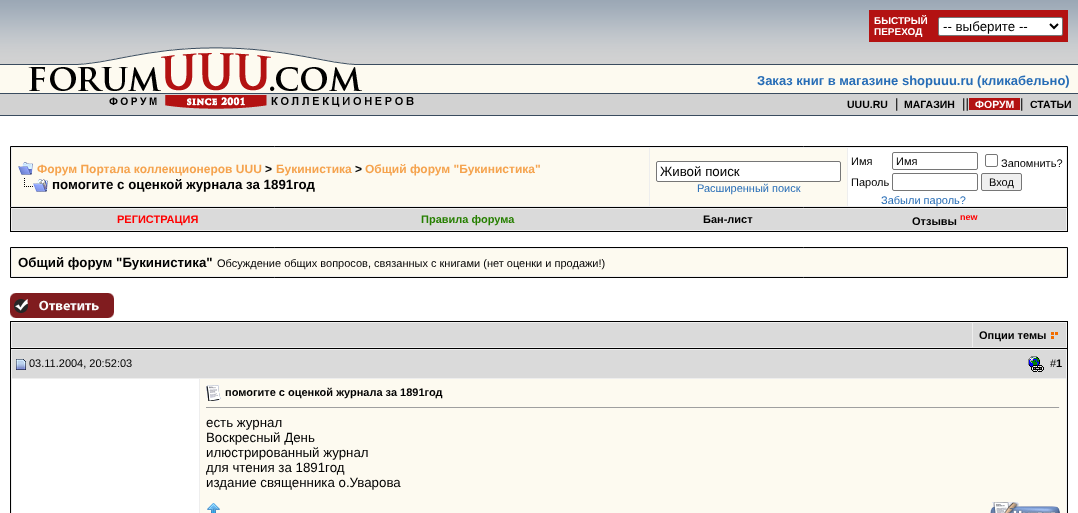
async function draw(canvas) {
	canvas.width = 1078;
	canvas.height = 513;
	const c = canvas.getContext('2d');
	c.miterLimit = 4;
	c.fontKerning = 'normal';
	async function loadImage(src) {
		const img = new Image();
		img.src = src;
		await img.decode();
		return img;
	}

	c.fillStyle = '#fff';
	c.fillRect(0, 0, 1078, 513);
	c.drawImage(await loadImage('img2.png'), 470, 0, 608, 116);
	c.fillStyle = '#b31212';
	c.fillRect(869, 10, 199, 32);
	c.font = 'bold 10px Liberation Sans';
	c.fillStyle = '#fff';
	c.fillText('БЫСТРЫЙ', 874, 24);
	c.fillText('ПЕРЕХОД', 874, 35);
	c.beginPath();
	c.roundRect(938.5, 17.5, 124, 18, 1.5);
	c.fill();
	c.strokeStyle = '#767676';
	c.stroke();
	c.beginPath();
	c.moveTo(1050, 24);
	c.lineTo(1054, 28);
	c.lineTo(1058, 24);
	c.strokeStyle = '#000';
	c.lineWidth = 2;
	c.stroke();
	c.font = '13.3px Liberation Sans';
	c.fillStyle = '#000';
	c.fillText('-- выберите --', 943, 31);
	c.drawImage(await loadImage('img1.png'), 0, 0, 470, 116);
	c.font = 'bold 13px Liberation Sans';
	c.fillStyle = '#276db6';
	c.fillText('Заказ книг в магазине shopuuu.ru (кликабельно)', 757, 85);
	c.font = 'bold 10.5px Liberation Sans';
	c.fillStyle = '#000';
	c.fillText('UUU.RU', 847, 108);
	c.font = '13.3px Liberation Sans';
	c.fillText('|', 895, 108);
	c.font = 'bold 10.5px Liberation Sans';
	c.fillText('МАГАЗИН', 904, 108);
	c.font = '13.3px Liberation Sans';
	c.fillText('||', 962, 108);
	c.fillStyle = '#b31212';
	c.fillRect(969, 98, 51, 12);
	c.font = 'bold 10.5px Liberation Sans';
	c.fillStyle = '#fff';
	c.fillText('ФОРУМ', 975, 108);
	c.font = '13.3px Liberation Sans';
	c.fillStyle = '#000';
	c.fillText('|', 1020, 108);
	c.font = 'bold 10.5px Liberation Sans';
	c.fillText('СТАТЬИ', 1030, 108);
	c.fillStyle = '#eee';
	c.beginPath();
	c.rect(10.5, 146.5, 1057, 61);
	c.fill();
	c.lineWidth = 1;
	c.stroke();
	c.fillStyle = '#fdfaf0';
	c.fillRect(12, 148, 637, 58);
	c.drawImage(await loadImage('img3.png'), 18, 162, 15, 13);
	c.font = 'bold 12px Liberation Sans';
	c.fillStyle = '#f5a34e';
	c.fillText('Форум Портала коллекционеров UUU', 37, 173);
	c.fillStyle = '#000';
	c.fillText('>', 265, 173);
	c.fillStyle = '#f5a34e';
	c.fillText('Букинистика', 276, 173);
	c.fillStyle = '#000';
	c.fillText('>', 355, 173);
	c.fillStyle = '#f5a34e';
	c.fillText('Общий форум "Букинистика"', 365, 173);
	c.drawImage(await loadImage('img4.png'), 24, 178, 24, 14);
	c.font = 'bold 13.3px Liberation Sans';
	c.fillStyle = '#000';
	c.fillText('помогите с оценкой журнала за 1891год', 52, 189);
	c.fillStyle = '#fdfaf0';
	c.fillRect(650, 148, 197, 58);
	c.fillStyle = '#fff';
	c.beginPath();
	c.roundRect(656.5, 161.5, 184, 20, 1.5);
	c.fill();
	c.strokeStyle = '#767676';
	c.stroke();
	c.font = '13.3px Liberation Sans';
	c.fillStyle = '#000';
	c.fillText('Живой поиск', 660, 176);
	c.font = '11px Liberation Sans';
	c.fillStyle = '#276db6';
	c.fillText('Расширенный поиск', 697, 192);
	c.fillStyle = '#fff';
	c.fillRect(848, 148, 218, 58);
	c.fillStyle = '#000';
	c.fillText('Имя', 851, 165);
	c.beginPath();
	c.roundRect(892.5, 152.5, 85, 17, 1.5);
	c.stroke();
	c.fillText('Имя', 896, 165);
	c.beginPath();
	c.roundRect(985.5, 154.5, 12, 12, 1.5);
	c.stroke();
	c.fillText('Запомнить?', 1001, 167);
	c.fillText('Пароль', 851, 186);
	c.beginPath();
	c.roundRect(892.5, 173.5, 85, 17, 1.5);
	c.stroke();
	c.fillStyle = '#efefef';
	c.beginPath();
	c.roundRect(981.5, 173.5, 40, 17, 1.5);
	c.fill();
	c.stroke();
	c.fillStyle = '#000';
	c.fillText('Вход', 989, 186);
	c.fillStyle = '#276db6';
	c.fillText('Забыли пароль?', 881, 204);
	for (const [x, y, w, h, color] of [
		[11, 208, 1056, 23, '#eee'],
		[1067, 208, 1, 24, '#000'],
		[10, 231, 1058, 1, '#000'],
		[10, 208, 1, 24, '#000'],
		[12, 209, 1054, 21, '#dadada'],
	]) {
		c.fillStyle = color;
		c.fillRect(x, y, w, h);
	}
	c.font = 'bold 11px Liberation Sans';
	c.fillStyle = '#f00';
	c.fillText('РЕГИСТРАЦИЯ', 117, 223);
	c.fillStyle = '#267f00';
	c.fillText('Правила форума', 421, 223);
	c.fillStyle = '#000';
	c.fillText('Бан-лист', 703, 223);
	c.fillText('Отзывы', 912, 225);
	c.font = 'bold 9px Liberation Sans';
	c.fillStyle = '#f00';
	c.fillText('new', 960, 220);
	c.fillStyle = '#eee';
	c.beginPath();
	c.rect(10.5, 247.5, 1057, 30);
	c.fill();
	c.strokeStyle = '#000';
	c.stroke();
	c.fillStyle = '#fdfaf0';
	c.fillRect(12, 249, 1054, 27);
	c.font = 'bold 13.3px Liberation Sans';
	c.fillStyle = '#000';
	c.fillText('Общий форум "Букинистика"', 18, 267);
	c.font = '11px Liberation Sans';
	c.fillText('Обсуждение общих вопросов, связанных с книгами (нет оценки и продажи!)', 217, 267);
	c.drawImage(await loadImage('img5.png'), 10, 293, 104, 25);
	for (const [x, y, w, h, color] of [
		[11, 322, 1056, 26, '#eee'],
		[10, 321, 1058, 1, '#000'],
		[1067, 321, 1, 27, '#000'],
		[10, 321, 1, 27, '#000'],
		[12, 323, 960, 24, '#dadada'],
		[973, 323, 93, 24, '#dadada'],
	]) {
		c.fillStyle = color;
		c.fillRect(x, y, w, h);
	}
	c.font = 'bold 11px Liberation Sans';
	c.fillStyle = '#000';
	c.fillText('Опции темы', 979, 339);
	c.drawImage(await loadImage('img6.png'), 1051, 332, 7, 7);
	c.strokeRect(10.5, 348.5, 1057, 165);
	for (const [x, y, w, h, color] of [
		[12, 350, 1054, 28, '#dadada'],
		[11, 349, 1056, 1, '#eee'],
		[11, 378, 189, 1, '#eee'],
		[11, 349, 1, 164, '#eee'],
	]) {
		c.fillStyle = color;
		c.fillRect(x, y, w, h);
	}
	c.drawImage(await loadImage('img7.png'), 16, 359, 10, 11);
	c.font = '11px Liberation Sans';
	c.fillStyle = '#000';
	c.fillText('03.11.2004, 20:52:03', 29, 367);
	c.fillStyle = '#eee';
	c.fillRect(1066, 349, 1, 164);
	c.fillRect(200, 378, 867, 1);
	c.drawImage(await loadImage('img8.png'), 1028, 356, 16, 16);
	c.fillStyle = '#000';
	c.fillText('#', 1050, 367);
	c.font = 'bold 11px Liberation Sans';
	c.fillText('1', 1056, 367);
	c.fillStyle = '#eee';
	c.fillRect(199, 379, 1, 134);
	c.fillStyle = '#fdfaf0';
	c.fillRect(200, 379, 866, 134);
	c.drawImage(await loadImage('img9.png'), 206, 385, 15, 16);
	c.fillStyle = '#000';
	c.fillText('помогите с оценкой журнала за 1891год', 225, 396);
	c.fillStyle = '#9f9f9f';
	c.fillRect(206, 407, 854, 1);
	c.fillStyle = '#eee';
	c.fillRect(1059, 407, 1, 1);
	c.font = '13.3px Liberation Sans';
	c.fillStyle = '#000';
	for (const [text, x, y] of [
		['есть журнал', 206, 427],
		['Воскресный День', 206, 442],
		['илюстрированный журнал', 206, 457],
		['для чтения за 1891год', 206, 472],
		['издание священника о.Уварова', 206, 487],
	]) {
		c.fillText(text, x, y);
	}
	c.drawImage(await loadImage('img10.png'), 207, 503, 13, 10);
	c.drawImage(await loadImage('img11.png'), 990, 502, 70, 11);
}

draw(document.querySelector('canvas'));
